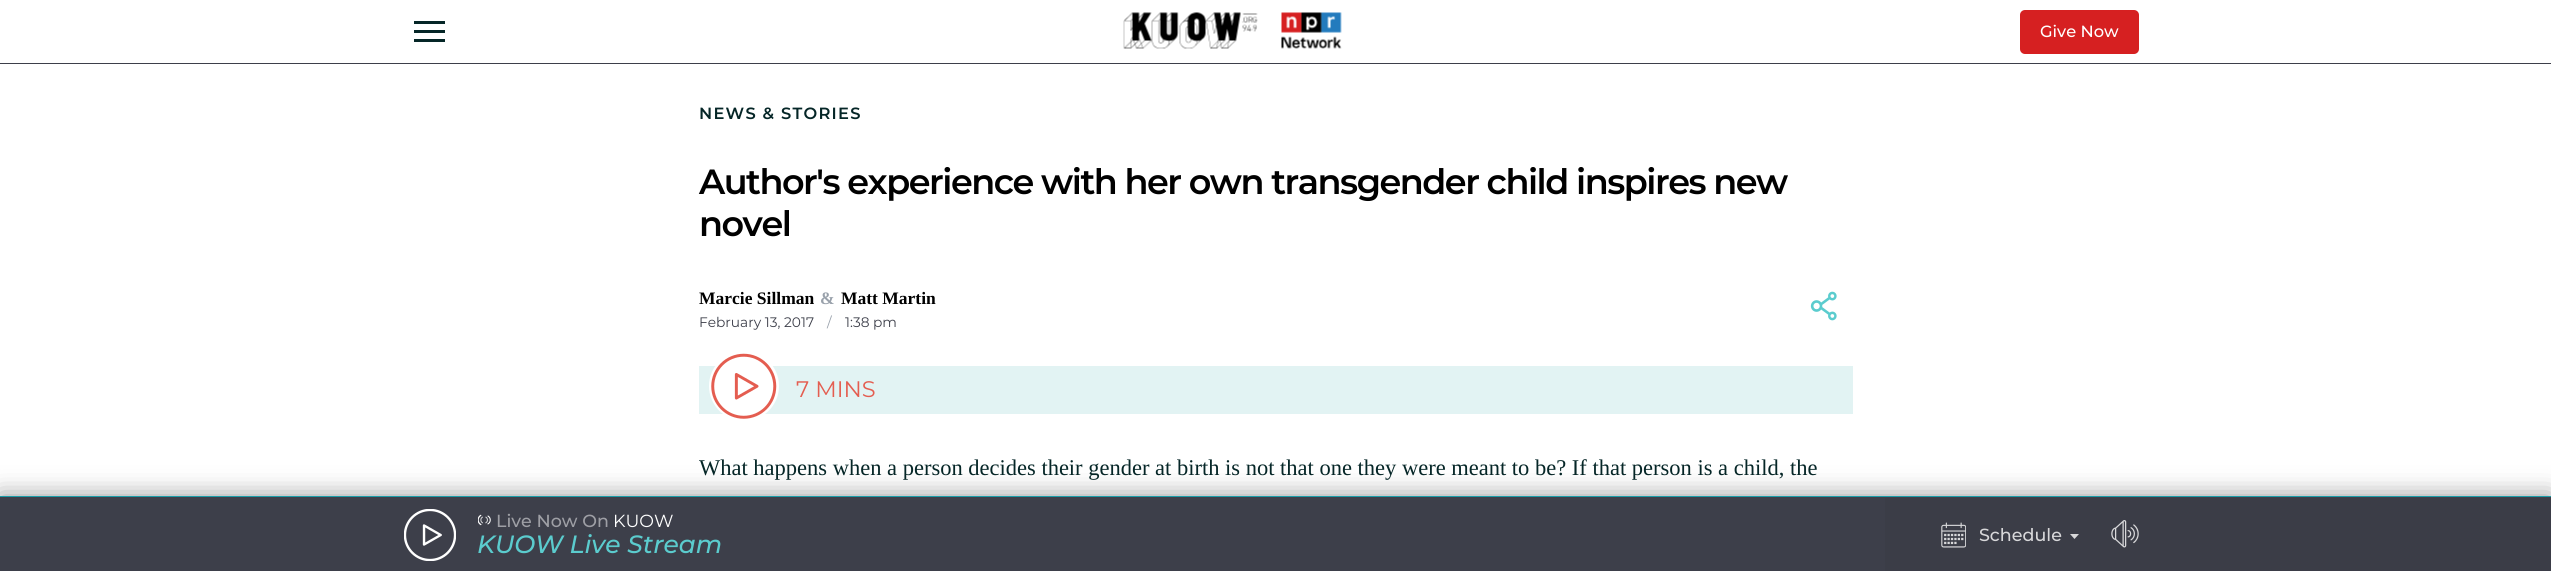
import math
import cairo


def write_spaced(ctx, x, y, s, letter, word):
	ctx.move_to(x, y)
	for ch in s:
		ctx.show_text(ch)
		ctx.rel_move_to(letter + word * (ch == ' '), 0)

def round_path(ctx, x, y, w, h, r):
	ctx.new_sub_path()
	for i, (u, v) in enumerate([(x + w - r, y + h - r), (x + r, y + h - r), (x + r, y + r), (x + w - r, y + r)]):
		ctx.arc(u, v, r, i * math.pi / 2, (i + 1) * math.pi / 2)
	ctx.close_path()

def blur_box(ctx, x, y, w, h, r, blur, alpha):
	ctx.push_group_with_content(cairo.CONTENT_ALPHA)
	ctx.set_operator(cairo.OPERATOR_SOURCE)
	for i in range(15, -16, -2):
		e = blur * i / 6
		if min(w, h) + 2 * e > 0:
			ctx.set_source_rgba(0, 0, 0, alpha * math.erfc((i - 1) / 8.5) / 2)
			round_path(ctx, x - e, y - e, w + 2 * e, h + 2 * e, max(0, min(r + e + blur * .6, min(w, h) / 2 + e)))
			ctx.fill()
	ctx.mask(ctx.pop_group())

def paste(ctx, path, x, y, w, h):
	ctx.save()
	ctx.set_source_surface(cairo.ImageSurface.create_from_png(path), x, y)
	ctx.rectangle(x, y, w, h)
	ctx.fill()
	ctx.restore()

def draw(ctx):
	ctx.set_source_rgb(1, 1, 1)
	ctx.paint()
	ctx.set_source_rgb(0.239, 0.247, 0.29)
	ctx.rectangle(0, 63, 2551, 1)
	ctx.fill()
	ctx.set_source_rgb(0.02, 0.149, 0.153)
	ctx.rectangle(414, 21, 31, 3)
	ctx.rectangle(414, 30, 31, 3)
	ctx.rectangle(414, 39, 31, 3)
	ctx.fill()
	paste(ctx, 'media/1.png', 1123, 12, 219, 37)
	ctx.set_source_rgb(0.839, 0.125, 0.129)
	round_path(ctx, 2020, 10, 119, 44, 5)
	ctx.fill()
	ctx.select_font_face('Montserrat Medium')
	ctx.set_font_size(16.25)
	ctx.set_source_rgb(1, 1, 1)
	ctx.move_to(2040, 37)
	ctx.show_text('Give Now')
	ctx.select_font_face('Montserrat SemiBold')
	ctx.set_source_rgb(0.02, 0.149, 0.153)
	write_spaced(ctx, 699, 119, 'NEWS & STORIES', 1.25, 0)
	ctx.set_font_size(35)
	ctx.set_source_rgb(0, 0, 0)
	write_spaced(ctx, 699, 194, 'Author\'s experience with her own transgender child inspires new', -1.47, 0)
	write_spaced(ctx, 699, 236, 'novel', -1.47, 0)
	ctx.select_font_face('Liberation Serif', cairo.FONT_SLANT_NORMAL, cairo.FONT_WEIGHT_BOLD)
	ctx.set_font_size(17.5)
	ctx.move_to(699, 304)
	ctx.show_text('Marcie Sillman')
	ctx.set_source_rgb(0.6, 0.631, 0.671)
	ctx.move_to(820, 304)
	ctx.show_text('&')
	ctx.set_source_rgb(0, 0, 0)
	ctx.move_to(841, 304)
	ctx.show_text('Matt Martin')
	ctx.select_font_face('Montserrat')
	ctx.set_font_size(13.75)
	ctx.set_source_rgb(0.239, 0.247, 0.29)
	ctx.move_to(699, 327)
	ctx.show_text('February 13, 2017')
	ctx.set_source_rgb(0.6, 0.631, 0.671)
	ctx.move_to(827, 327)
	ctx.show_text('/')
	ctx.set_source_rgb(0.239, 0.247, 0.29)
	ctx.move_to(845, 327)
	ctx.show_text('1:38 pm')
	paste(ctx, 'media/2.png', 1810, 291, 27, 30)
	ctx.set_source_rgb(0.886, 0.953, 0.953)
	ctx.rectangle(699, 366, 1154, 48)
	ctx.fill()
	ctx.set_source_rgb(1, 1, 1)
	ctx.arc(744, 386, 35, 0, 2 * math.pi)
	ctx.fill()
	paste(ctx, 'media/3.png', 711, 353, 66, 66)
	ctx.set_font_size(22.5)
	ctx.set_source_rgb(0.894, 0.365, 0.314)
	ctx.move_to(796, 397)
	ctx.show_text('7 MINS')
	ctx.select_font_face('Liberation Serif')
	ctx.set_source_rgb(0.02, 0.149, 0.153)
	ctx.move_to(699, 475)
	ctx.show_text('What happens when a person decides their gender at birth is not that one they were meant to be? If that person is a child, the')
	ctx.set_source_rgb(0, 0, 0)
	blur_box(ctx, 0, 496, 2551, 75, 0, 12.5, 0.42)
	ctx.set_source_rgb(0.239, 0.247, 0.29)
	ctx.rectangle(0, 497, 2551, 74)
	ctx.fill()
	ctx.set_source_rgb(0.102, 0.612, 0.659)
	ctx.rectangle(0, 496, 2551, 1)
	ctx.fill()
	paste(ctx, 'media/4.png', 404, 509, 52, 52)
	paste(ctx, 'media/5.png', 478, 514, 13, 12)
	ctx.select_font_face('Montserrat Medium')
	ctx.set_font_size(17.5)
	ctx.set_source_rgb(0.62, 0.624, 0.647)
	ctx.move_to(496, 527)
	ctx.show_text('Live Now On')
	ctx.select_font_face('Montserrat')
	ctx.set_source_rgb(1, 1, 1)
	ctx.move_to(613, 527)
	ctx.show_text('KUOW')
	ctx.select_font_face('Montserrat Medium', cairo.FONT_SLANT_ITALIC)
	ctx.set_font_size(25)
	ctx.set_source_rgb(0.357, 0.8, 0.808)
	ctx.move_to(477, 553)
	ctx.show_text('KUOW Live Stream')
	ctx.set_source_rgb(0.231, 0.239, 0.278)
	ctx.rectangle(1885, 498, 666, 73)
	ctx.fill()
	paste(ctx, 'media/6.png', 1941, 522, 25, 26)
	ctx.select_font_face('Montserrat Medium')
	ctx.set_font_size(17.5)
	ctx.set_source_rgb(0.847, 0.847, 0.855)
	ctx.move_to(1979, 541)
	ctx.show_text('Schedule')
	ctx.set_fill_rule(cairo.FILL_RULE_EVEN_ODD)
	ctx.new_path()
	ctx.move_to(2074.5, 539)
	ctx.line_to(2070, 534)
	ctx.line_to(2079, 534)
	ctx.close_path()
	ctx.fill()
	paste(ctx, 'media/7.png', 2111, 520, 28, 28)


surface = cairo.ImageSurface(cairo.FORMAT_RGB24, 2551, 571)
ctx = cairo.Context(surface)
options = cairo.FontOptions()
options.set_hint_metrics(cairo.HINT_METRICS_OFF)
options.set_hint_style(cairo.HINT_STYLE_NONE)
ctx.set_font_options(options)
ctx.set_miter_limit(4)
draw(ctx)
surface.write_to_png('image.png')
